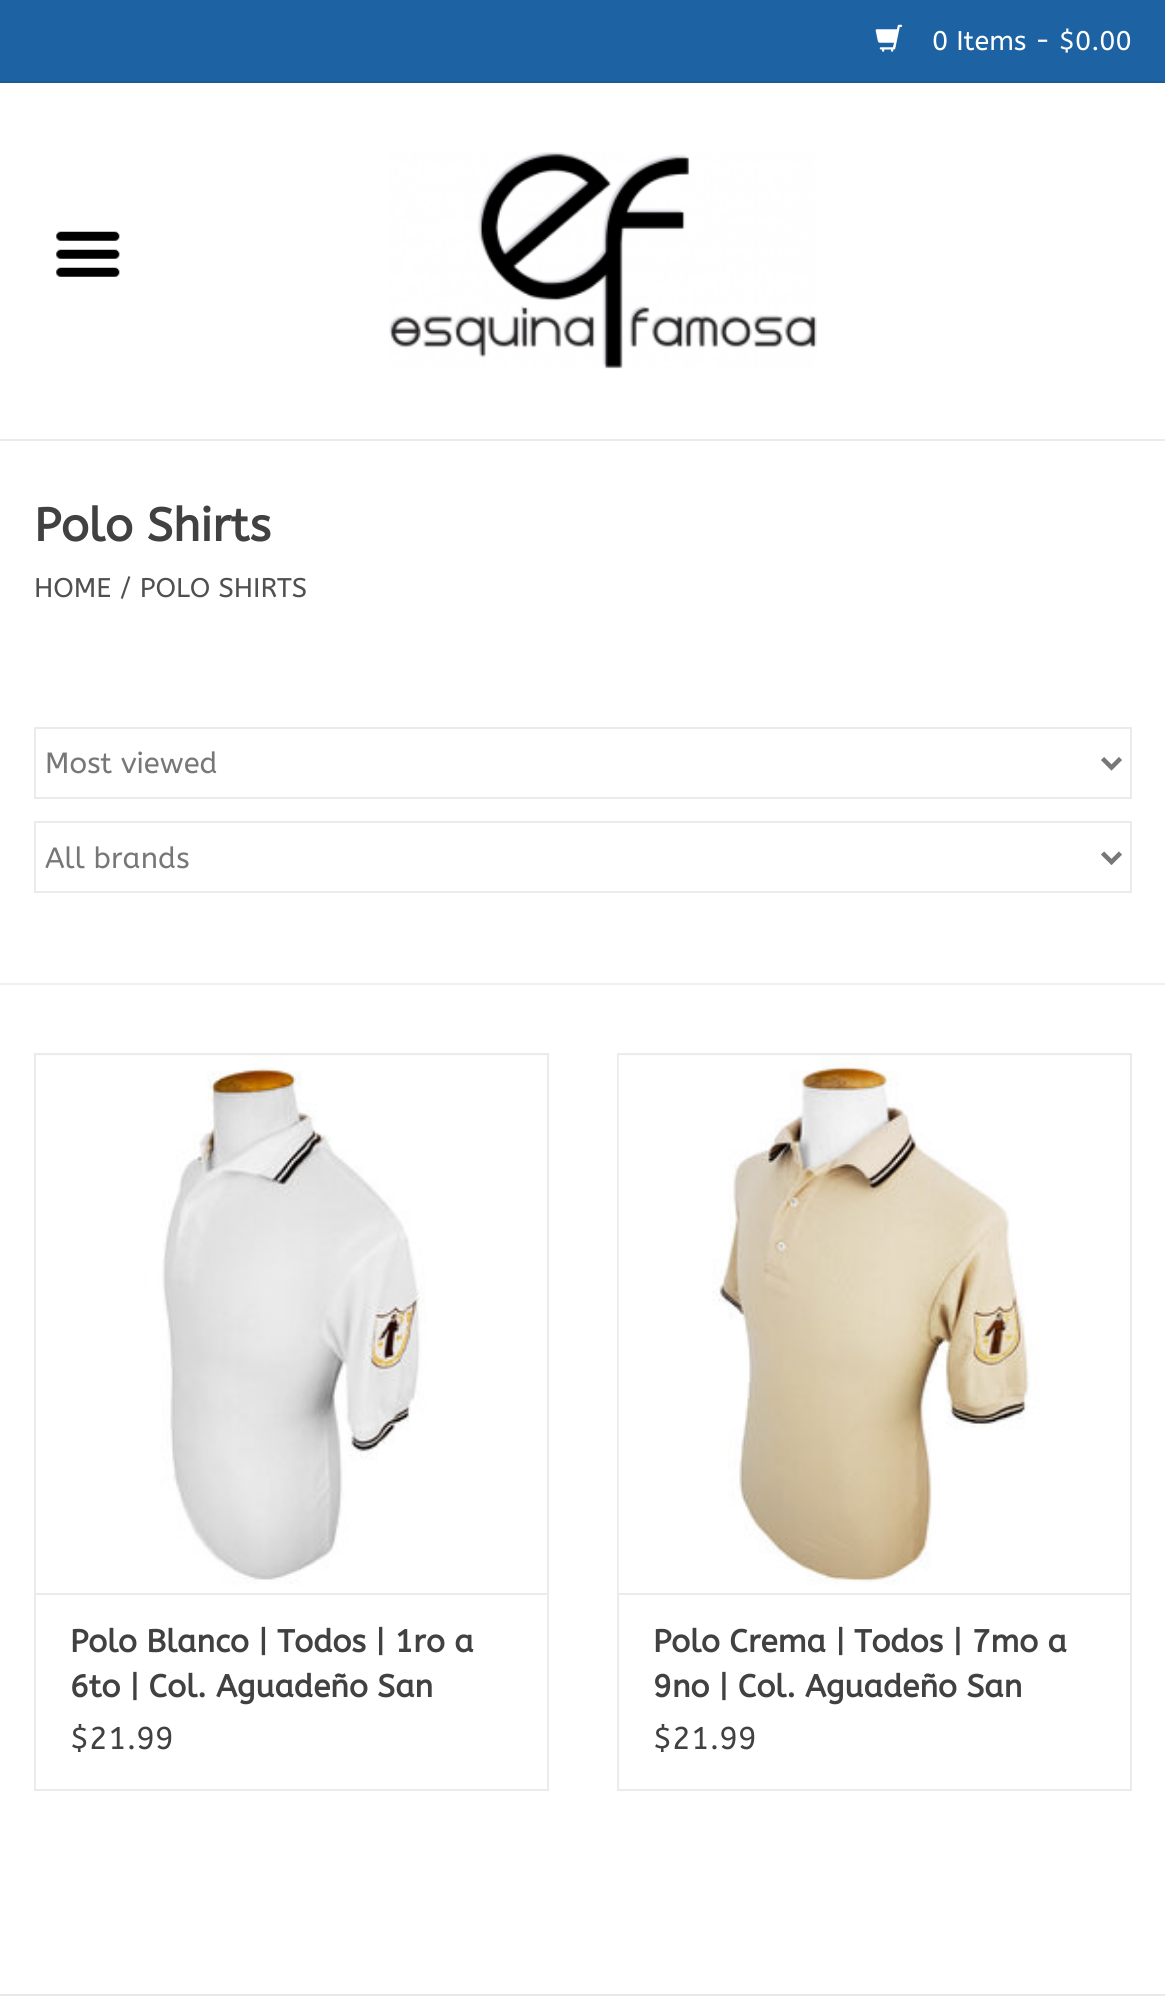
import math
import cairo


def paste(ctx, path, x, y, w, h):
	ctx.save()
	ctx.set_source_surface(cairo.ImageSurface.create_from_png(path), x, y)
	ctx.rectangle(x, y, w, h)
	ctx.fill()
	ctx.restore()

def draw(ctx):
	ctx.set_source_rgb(1, 1, 1)
	ctx.paint()
	ctx.set_source_rgb(0.114, 0.384, 0.635)
	ctx.rectangle(0, 0, 1165, 81)
	ctx.fill()
	ctx.set_source_rgb(0.102, 0.357, 0.588)
	ctx.rectangle(0, 81, 1165, 2)
	ctx.fill()
	paste(ctx, 'media/1.png', 875, 24, 28, 28)
	ctx.select_font_face('ABeeZee')
	ctx.set_font_size(27)
	ctx.set_source_rgb(1, 1, 1)
	ctx.move_to(932, 50)
	ctx.show_text('0 Items - $0.00')
	ctx.set_source_rgb(0.918, 0.918, 0.918)
	ctx.rectangle(0, 439, 1165, 2)
	ctx.fill()
	paste(ctx, 'media/2.png', 389, 152, 428, 217)
	paste(ctx, 'media/3.png', 56, 231, 64, 46)
	ctx.select_font_face('ABeeZee', cairo.FONT_SLANT_NORMAL, cairo.FONT_WEIGHT_BOLD)
	ctx.set_font_size(46.5)
	ctx.set_source_rgb(0.255, 0.255, 0.255)
	ctx.move_to(34, 541)
	ctx.show_text('Polo Shirts')
	ctx.select_font_face('ABeeZee')
	ctx.set_font_size(27)
	ctx.set_source_rgb(0.314, 0.314, 0.314)
	ctx.move_to(34, 597)
	ctx.show_text('HOME / POLO SHIRTS')
	ctx.set_source_rgb(0.941, 0.941, 0.941)
	ctx.rectangle(0, 983, 1165, 2)
	ctx.fill()
	ctx.rectangle(35, 728, 1096, 70)
	ctx.set_source_rgb(0.918, 0.918, 0.918)
	ctx.stroke()
	ctx.new_path()
	ctx.move_to(1102.5, 758.5)
	ctx.line_to(1111.5, 767.5)
	ctx.line_to(1120.5, 758.5)
	ctx.set_source_rgb(0.467, 0.467, 0.467)
	ctx.set_line_width(4.5)
	ctx.stroke()
	ctx.set_font_size(29.25)
	ctx.move_to(45, 773)
	ctx.show_text('Most viewed')
	ctx.rectangle(35, 822, 1096, 70)
	ctx.set_source_rgb(0.918, 0.918, 0.918)
	ctx.set_line_width(2)
	ctx.stroke()
	ctx.new_path()
	ctx.move_to(1102.5, 853)
	ctx.line_to(1111.5, 862)
	ctx.line_to(1120.5, 853)
	ctx.set_source_rgb(0.467, 0.467, 0.467)
	ctx.set_line_width(4.5)
	ctx.stroke()
	ctx.move_to(45, 868)
	ctx.show_text('All brands')
	ctx.set_source_rgb(0.969, 0.969, 0.969)
	ctx.rectangle(36, 1055, 511, 538)
	ctx.fill()
	ctx.set_source_rgb(0.918, 0.918, 0.918)
	ctx.rectangle(34, 1053, 515, 2)
	ctx.rectangle(547, 1053, 2, 540)
	ctx.rectangle(34, 1053, 2, 540)
	ctx.fill()
	paste(ctx, 'media/4.png', 36, 1055, 511, 538)
	ctx.rectangle(35, 1594, 513, 196)
	ctx.set_line_width(2)
	ctx.stroke()
	ctx.select_font_face('ABeeZee', cairo.FONT_SLANT_NORMAL, cairo.FONT_WEIGHT_BOLD)
	ctx.set_font_size(31.5)
	ctx.set_source_rgb(0.255, 0.255, 0.255)
	ctx.move_to(70, 1652)
	ctx.show_text('Polo Blanco | Todos | 1ro a')
	ctx.move_to(70, 1697)
	ctx.show_text('6to | Col. Aguadeño San')
	ctx.select_font_face('ABeeZee')
	ctx.move_to(70, 1749)
	ctx.show_text('$21.99')
	ctx.set_source_rgb(0.969, 0.969, 0.969)
	ctx.rectangle(619, 1055, 511, 538)
	ctx.fill()
	ctx.set_source_rgb(0.918, 0.918, 0.918)
	ctx.rectangle(617, 1053, 515, 2)
	ctx.rectangle(1130, 1053, 2, 540)
	ctx.rectangle(617, 1053, 2, 540)
	ctx.fill()
	paste(ctx, 'media/5.png', 618, 1055, 512, 538)
	ctx.rectangle(618, 1594, 513, 196)
	ctx.stroke()
	ctx.select_font_face('ABeeZee', cairo.FONT_SLANT_NORMAL, cairo.FONT_WEIGHT_BOLD)
	ctx.set_source_rgb(0.255, 0.255, 0.255)
	ctx.move_to(653, 1652)
	ctx.show_text('Polo Crema | Todos | 7mo a')
	ctx.move_to(653, 1697)
	ctx.show_text('9no | Col. Aguadeño San')
	ctx.select_font_face('ABeeZee')
	ctx.move_to(653, 1749)
	ctx.show_text('$21.99')
	ctx.set_source_rgb(0.914, 0.914, 0.914)
	ctx.rectangle(0, 1994, 1165, 2)
	ctx.fill()


surface = cairo.ImageSurface(cairo.FORMAT_RGB24, 1165, 2016)
ctx = cairo.Context(surface)
options = cairo.FontOptions()
options.set_hint_metrics(cairo.HINT_METRICS_OFF)
options.set_hint_style(cairo.HINT_STYLE_NONE)
ctx.set_font_options(options)
ctx.set_miter_limit(4)
draw(ctx)
surface.write_to_png('image.png')
